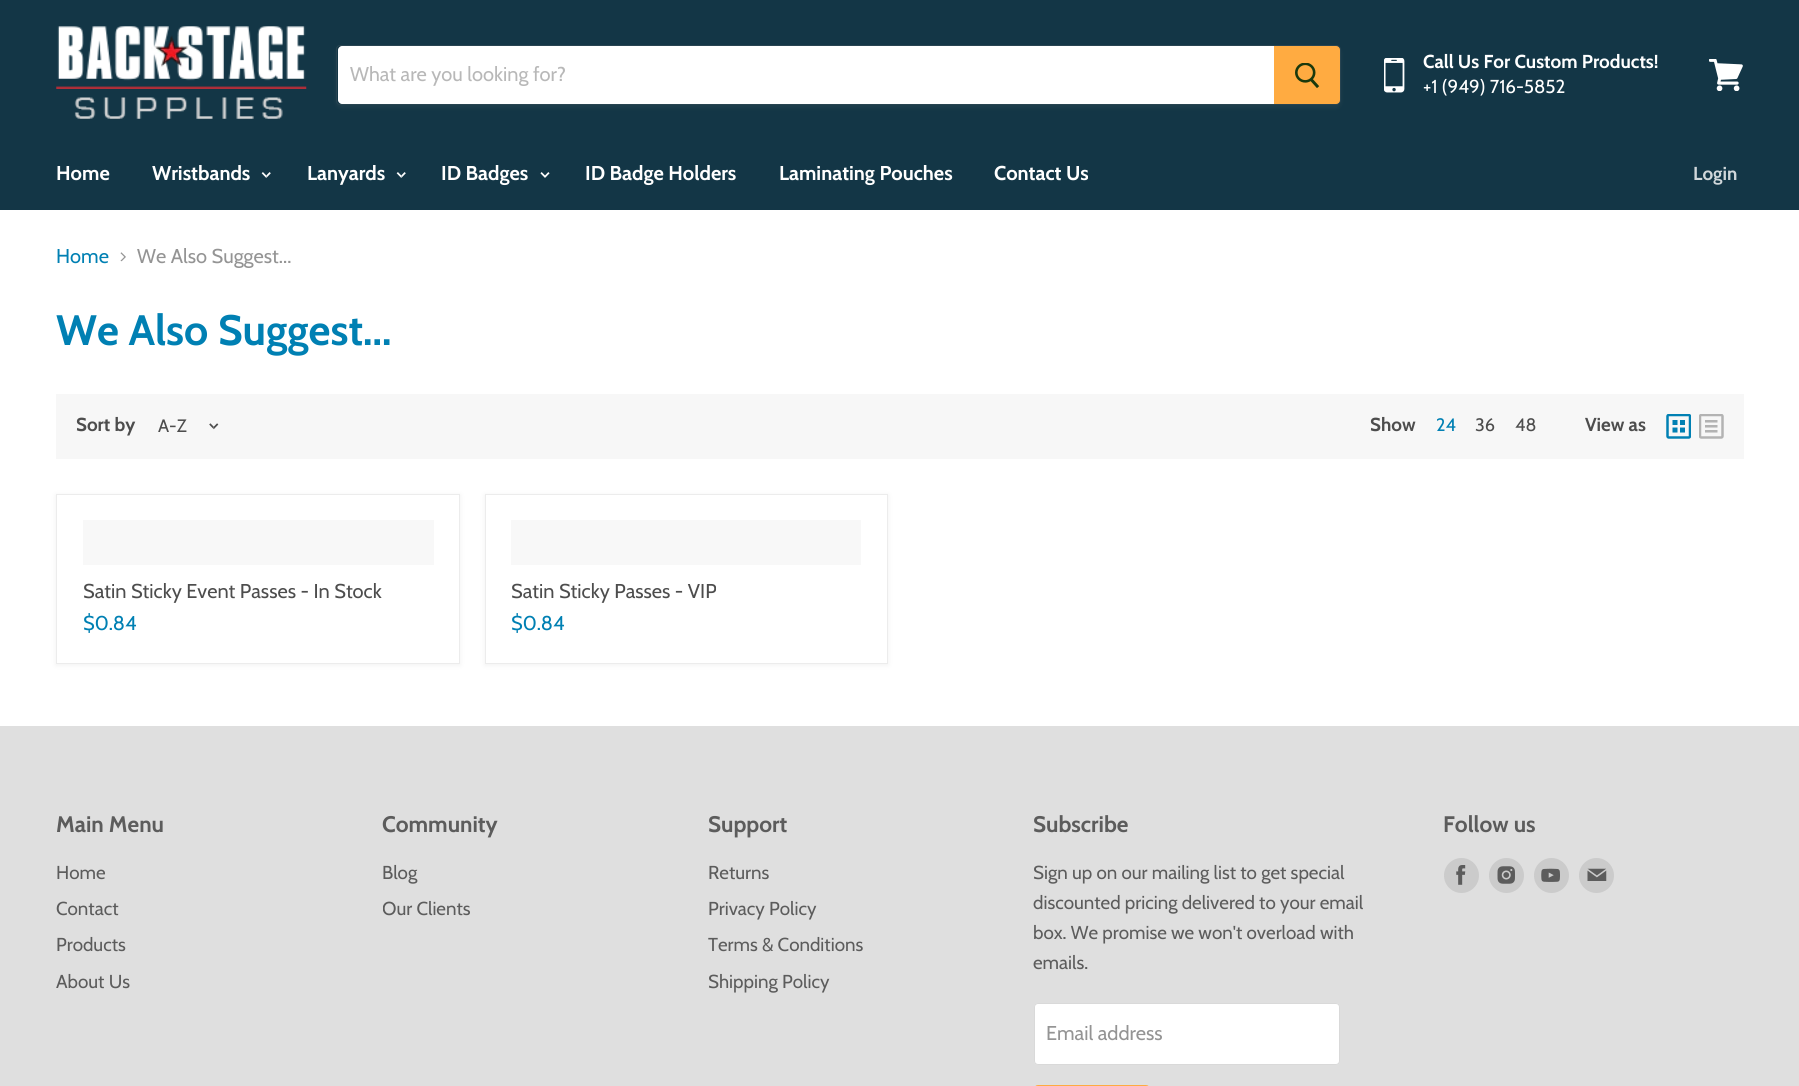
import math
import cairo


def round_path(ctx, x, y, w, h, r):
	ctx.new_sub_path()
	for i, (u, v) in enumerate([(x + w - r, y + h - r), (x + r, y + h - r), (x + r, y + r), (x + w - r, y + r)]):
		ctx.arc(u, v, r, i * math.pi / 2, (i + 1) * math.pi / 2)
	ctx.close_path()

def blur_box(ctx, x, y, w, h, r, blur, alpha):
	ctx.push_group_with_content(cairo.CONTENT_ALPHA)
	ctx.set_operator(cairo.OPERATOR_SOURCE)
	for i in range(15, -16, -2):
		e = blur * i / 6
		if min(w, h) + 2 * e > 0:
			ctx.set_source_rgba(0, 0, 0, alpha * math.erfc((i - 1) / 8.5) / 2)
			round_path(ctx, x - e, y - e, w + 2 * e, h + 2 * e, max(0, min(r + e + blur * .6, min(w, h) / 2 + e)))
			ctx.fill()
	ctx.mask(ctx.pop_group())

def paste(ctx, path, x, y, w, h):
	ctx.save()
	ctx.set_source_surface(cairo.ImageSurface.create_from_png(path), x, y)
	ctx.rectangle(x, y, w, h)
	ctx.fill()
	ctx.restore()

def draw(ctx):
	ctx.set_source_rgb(1, 1, 1)
	ctx.paint()
	ctx.set_source_rgb(0.075, 0.212, 0.275)
	ctx.rectangle(0, 0, 1799, 210)
	ctx.fill()
	paste(ctx, 'media/1.png', 56, 26, 251, 93)
	ctx.save()
	ctx.set_fill_rule(cairo.FILL_RULE_EVEN_ODD)
	ctx.new_path()
	ctx.move_to(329, 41)
	ctx.line_to(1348, 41)
	ctx.line_to(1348, 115)
	ctx.line_to(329, 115)
	ctx.close_path()
	ctx.move_to(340, 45)
	ctx.line_to(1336, 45)
	ctx.curve_to(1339, 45, 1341, 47, 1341, 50)
	ctx.line_to(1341, 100)
	ctx.curve_to(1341, 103, 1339, 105, 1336, 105)
	ctx.line_to(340, 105)
	ctx.curve_to(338, 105, 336, 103, 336, 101)
	ctx.line_to(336, 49)
	ctx.curve_to(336, 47, 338, 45, 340, 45)
	ctx.close_path()
	ctx.clip()
	ctx.set_source_rgb(0.498, 0.498, 0.498)
	blur_box(ctx, 336, 48, 1005, 60, 5, 2, 0.11)
	ctx.restore()
	ctx.new_path()
	ctx.move_to(340, 45.5)
	ctx.line_to(1336, 45.5)
	ctx.curve_to(1338.5, 45.5, 1340.5, 47.5, 1340.5, 50)
	ctx.line_to(1340.5, 100)
	ctx.curve_to(1340.5, 102.5, 1338.5, 104.5, 1336, 104.5)
	ctx.line_to(340, 104.5)
	ctx.curve_to(338, 104.5, 336.5, 103, 336.5, 101)
	ctx.line_to(336.5, 49)
	ctx.curve_to(336.5, 47, 338, 45.5, 340, 45.5)
	ctx.close_path()
	ctx.set_source_rgba(0.498, 0.498, 0.498, 0.2)
	ctx.set_line_width(1)
	ctx.stroke()
	ctx.set_source_rgb(1, 1, 1)
	ctx.new_path()
	ctx.move_to(342, 46)
	ctx.line_to(1274, 46)
	ctx.line_to(1274, 104)
	ctx.line_to(342, 104)
	ctx.curve_to(340, 104, 338, 102, 338, 100)
	ctx.line_to(338, 50)
	ctx.curve_to(338, 48, 340, 46, 342, 46)
	ctx.close_path()
	ctx.fill()
	ctx.select_font_face('Cabin')
	ctx.set_font_size(20)
	ctx.set_source_rgb(0.722, 0.722, 0.722)
	ctx.move_to(350, 81)
	ctx.show_text('What are you looking for?')
	ctx.set_source_rgb(1, 0.671, 0.255)
	ctx.new_path()
	ctx.move_to(1274.5, 46.5)
	ctx.line_to(1336, 46.5)
	ctx.curve_to(1338, 46.5, 1339.5, 48, 1339.5, 50)
	ctx.line_to(1339.5, 100)
	ctx.curve_to(1339.5, 102, 1338, 103.5, 1336, 103.5)
	ctx.line_to(1274.5, 103.5)
	ctx.close_path()
	ctx.fill_preserve()
	ctx.stroke()
	paste(ctx, 'media/2.png', 1295, 63, 25, 25)
	paste(ctx, 'media/3.png', 1384, 58, 21, 35)
	ctx.select_font_face('Cabin', cairo.FONT_SLANT_NORMAL, cairo.FONT_WEIGHT_BOLD)
	ctx.set_font_size(18.75)
	ctx.set_source_rgb(1, 1, 1)
	ctx.move_to(1423, 68)
	ctx.show_text('Call Us For Custom Products!')
	ctx.select_font_face('Cabin')
	ctx.move_to(1423, 93)
	ctx.show_text('+1 (949) 716-5852')
	paste(ctx, 'media/4.png', 1709, 59, 34, 32)
	ctx.select_font_face('Cabin', cairo.FONT_SLANT_NORMAL, cairo.FONT_WEIGHT_BOLD)
	ctx.set_font_size(20)
	ctx.move_to(56, 180)
	ctx.show_text('Home')
	ctx.move_to(152, 180)
	ctx.show_text('Wristbands')
	paste(ctx, 'media/5.png', 261, 172, 10, 6)
	ctx.move_to(307, 180)
	ctx.show_text('Lanyards')
	paste(ctx, 'media/5.png', 396, 172, 10, 6)
	ctx.move_to(441, 180)
	ctx.show_text('ID Badges')
	paste(ctx, 'media/6.png', 540, 172, 10, 6)
	for x, y, s in [
		(585, 180, 'ID Badge Holders'),
		(779, 180, 'Laminating Pouches'),
		(994, 180, 'Contact Us'),
	]:
		ctx.move_to(x, y)
		ctx.show_text(s)
	ctx.set_font_size(18.75)
	ctx.set_source_rgb(0.816, 0.843, 0.855)
	ctx.move_to(1693, 180)
	ctx.show_text('Login')
	ctx.select_font_face('Cabin')
	ctx.set_font_size(20)
	ctx.set_source_rgb(0, 0.502, 0.702)
	ctx.move_to(56, 263)
	ctx.show_text('Home')
	paste(ctx, 'media/7.png', 120, 252, 6, 10)
	ctx.set_source_rgb(0.58, 0.58, 0.58)
	ctx.move_to(137, 263)
	ctx.show_text('We Also Suggest...')
	ctx.select_font_face('Cabin', cairo.FONT_SLANT_NORMAL, cairo.FONT_WEIGHT_BOLD)
	ctx.set_font_size(42.5)
	ctx.set_source_rgb(0, 0.502, 0.702)
	ctx.move_to(56, 345)
	ctx.show_text('We Also Suggest...')
	ctx.set_source_rgb(0.965, 0.965, 0.965)
	ctx.rectangle(56, 394, 1688, 65)
	ctx.fill()
	ctx.set_font_size(18.75)
	ctx.set_source_rgb(0.302, 0.302, 0.302)
	ctx.move_to(76, 431)
	ctx.show_text('Sort by')
	ctx.select_font_face('Cabin')
	ctx.set_font_size(18)
	ctx.move_to(158, 432)
	ctx.show_text('A-Z')
	paste(ctx, 'media/8.png', 209, 423, 10, 7)
	ctx.select_font_face('Cabin', cairo.FONT_SLANT_NORMAL, cairo.FONT_WEIGHT_BOLD)
	ctx.set_font_size(18.75)
	ctx.move_to(1370, 431)
	ctx.show_text('Show')
	ctx.select_font_face('Cabin')
	ctx.set_font_size(18)
	ctx.set_source_rgb(0, 0.502, 0.702)
	ctx.move_to(1436, 431)
	ctx.show_text('24')
	ctx.set_source_rgb(0.302, 0.302, 0.302)
	ctx.move_to(1475, 431)
	ctx.show_text('36')
	ctx.move_to(1515, 431)
	ctx.show_text('48')
	ctx.select_font_face('Cabin', cairo.FONT_SLANT_NORMAL, cairo.FONT_WEIGHT_BOLD)
	ctx.set_font_size(18.75)
	ctx.move_to(1585, 431)
	ctx.show_text('View as')
	paste(ctx, 'media/9.png', 1666, 414, 25, 25)
	paste(ctx, 'media/10.png', 1699, 414, 25, 25)
	ctx.set_source_rgb(0.498, 0.498, 0.498)
	blur_box(ctx, 56, 495, 404, 170, 0, 2.5, 0.11)
	ctx.set_source_rgb(1, 1, 1)
	ctx.rectangle(56.5, 494.5, 403, 169)
	ctx.fill_preserve()
	ctx.set_source_rgb(0.922, 0.922, 0.922)
	ctx.stroke()
	ctx.set_source_rgb(0.969, 0.969, 0.969)
	ctx.rectangle(83, 520, 351, 45)
	ctx.fill()
	ctx.select_font_face('Cabin')
	ctx.set_font_size(20)
	ctx.set_source_rgb(0.302, 0.302, 0.302)
	ctx.move_to(83, 598)
	ctx.show_text('Satin Sticky Event Passes - In Stock')
	ctx.set_source_rgb(0, 0.502, 0.702)
	ctx.move_to(83, 630)
	ctx.show_text('$0.84')
	ctx.set_source_rgb(0.498, 0.498, 0.498)
	blur_box(ctx, 485, 495, 403, 170, 0, 2.5, 0.11)
	ctx.set_source_rgb(1, 1, 1)
	ctx.rectangle(485.5, 494.5, 402, 169)
	ctx.fill_preserve()
	ctx.set_source_rgb(0.922, 0.922, 0.922)
	ctx.stroke()
	ctx.set_source_rgb(0.969, 0.969, 0.969)
	ctx.rectangle(511, 520, 350, 45)
	ctx.fill()
	ctx.set_source_rgb(0.302, 0.302, 0.302)
	ctx.move_to(511, 598)
	ctx.show_text('Satin Sticky Passes - VIP')
	ctx.set_source_rgb(0, 0.502, 0.702)
	ctx.move_to(511, 630)
	ctx.show_text('$0.84')
	ctx.set_source_rgb(0.875, 0.875, 0.875)
	ctx.rectangle(0, 726, 1799, 360)
	ctx.fill()
	ctx.select_font_face('Cabin', cairo.FONT_SLANT_NORMAL, cairo.FONT_WEIGHT_BOLD)
	ctx.set_font_size(22.5)
	ctx.set_source_rgb(0.361, 0.361, 0.361)
	ctx.move_to(56, 832)
	ctx.show_text('Main Menu')
	ctx.select_font_face('Cabin')
	ctx.set_font_size(18.75)
	for x, y, s in [
		(56, 879, 'Home'),
		(56, 915, 'Contact'),
		(56, 951, 'Products'),
		(56, 988, 'About Us'),
	]:
		ctx.move_to(x, y)
		ctx.show_text(s)
	ctx.select_font_face('Cabin', cairo.FONT_SLANT_NORMAL, cairo.FONT_WEIGHT_BOLD)
	ctx.set_font_size(22.5)
	ctx.move_to(382, 832)
	ctx.show_text('Community')
	ctx.select_font_face('Cabin')
	ctx.set_font_size(18.75)
	ctx.move_to(382, 879)
	ctx.show_text('Blog')
	ctx.save()
	ctx.rectangle(383, 858, 275, 66)
	ctx.clip()
	ctx.move_to(382, 915)
	ctx.show_text('Our Clients')
	ctx.restore()
	ctx.select_font_face('Cabin', cairo.FONT_SLANT_NORMAL, cairo.FONT_WEIGHT_BOLD)
	ctx.set_font_size(22.5)
	ctx.move_to(708, 832)
	ctx.show_text('Support')
	ctx.select_font_face('Cabin')
	ctx.set_font_size(18.75)
	for x, y, s in [
		(708, 879, 'Returns'),
		(708, 915, 'Privacy Policy'),
		(708, 951, 'Terms & Conditions'),
		(708, 988, 'Shipping Policy'),
	]:
		ctx.move_to(x, y)
		ctx.show_text(s)
	ctx.select_font_face('Cabin', cairo.FONT_SLANT_NORMAL, cairo.FONT_WEIGHT_BOLD)
	ctx.set_font_size(22.5)
	ctx.move_to(1033, 832)
	ctx.show_text('Subscribe')
	ctx.select_font_face('Cabin')
	ctx.set_font_size(18.75)
	for x, y, s in [
		(1033, 879, 'Sign up on our mailing list to get special'),
		(1033, 909, 'discounted pricing delivered to your email'),
		(1033, 939, 'box. We promise we won\'t overload with'),
		(1033, 969, 'emails.'),
	]:
		ctx.move_to(x, y)
		ctx.show_text(s)
	ctx.set_source_rgb(1, 1, 1)
	round_path(ctx, 1034, 1003, 306, 62, 4)
	ctx.fill()
	round_path(ctx, 1034.5, 1003.5, 305, 61, 3.5)
	ctx.set_source_rgba(0.498, 0.498, 0.498, 0.3)
	ctx.stroke()
	ctx.set_font_size(20)
	ctx.set_source_rgb(0.58, 0.58, 0.58)
	ctx.move_to(1046, 1040)
	ctx.show_text('Email address')
	round_path(ctx, 1034.5, 1085.5, 115, 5, 3.5)
	ctx.set_source_rgb(1, 0.671, 0.255)
	ctx.stroke()
	ctx.select_font_face('Cabin', cairo.FONT_SLANT_NORMAL, cairo.FONT_WEIGHT_BOLD)
	ctx.set_font_size(22.5)
	ctx.set_source_rgb(0.361, 0.361, 0.361)
	ctx.move_to(1443, 832)
	ctx.show_text('Follow us')
	ctx.set_source_rgb(0.796, 0.796, 0.796)
	ctx.new_path()
	ctx.arc(1461.5, 875.5, 17.5, 0, 2 * math.pi)
	ctx.fill()
	paste(ctx, 'media/11.png', 1456, 865, 10, 20)
	ctx.arc(1506.5, 875.5, 17.5, 0, 2 * math.pi)
	ctx.fill()
	paste(ctx, 'media/12.png', 1497, 866, 18, 18)
	ctx.arc(1551.5, 875.5, 17.5, 0, 2 * math.pi)
	ctx.fill()
	paste(ctx, 'media/13.png', 1541, 868, 19, 14)
	ctx.arc(1596.5, 875.5, 17.5, 0, 2 * math.pi)
	ctx.fill()
	paste(ctx, 'media/14.png', 1587, 868, 20, 13)


surface = cairo.ImageSurface(cairo.FORMAT_RGB24, 1799, 1086)
ctx = cairo.Context(surface)
options = cairo.FontOptions()
options.set_hint_metrics(cairo.HINT_METRICS_OFF)
options.set_hint_style(cairo.HINT_STYLE_NONE)
ctx.set_font_options(options)
ctx.set_miter_limit(4)
draw(ctx)
surface.write_to_png('image.png')
